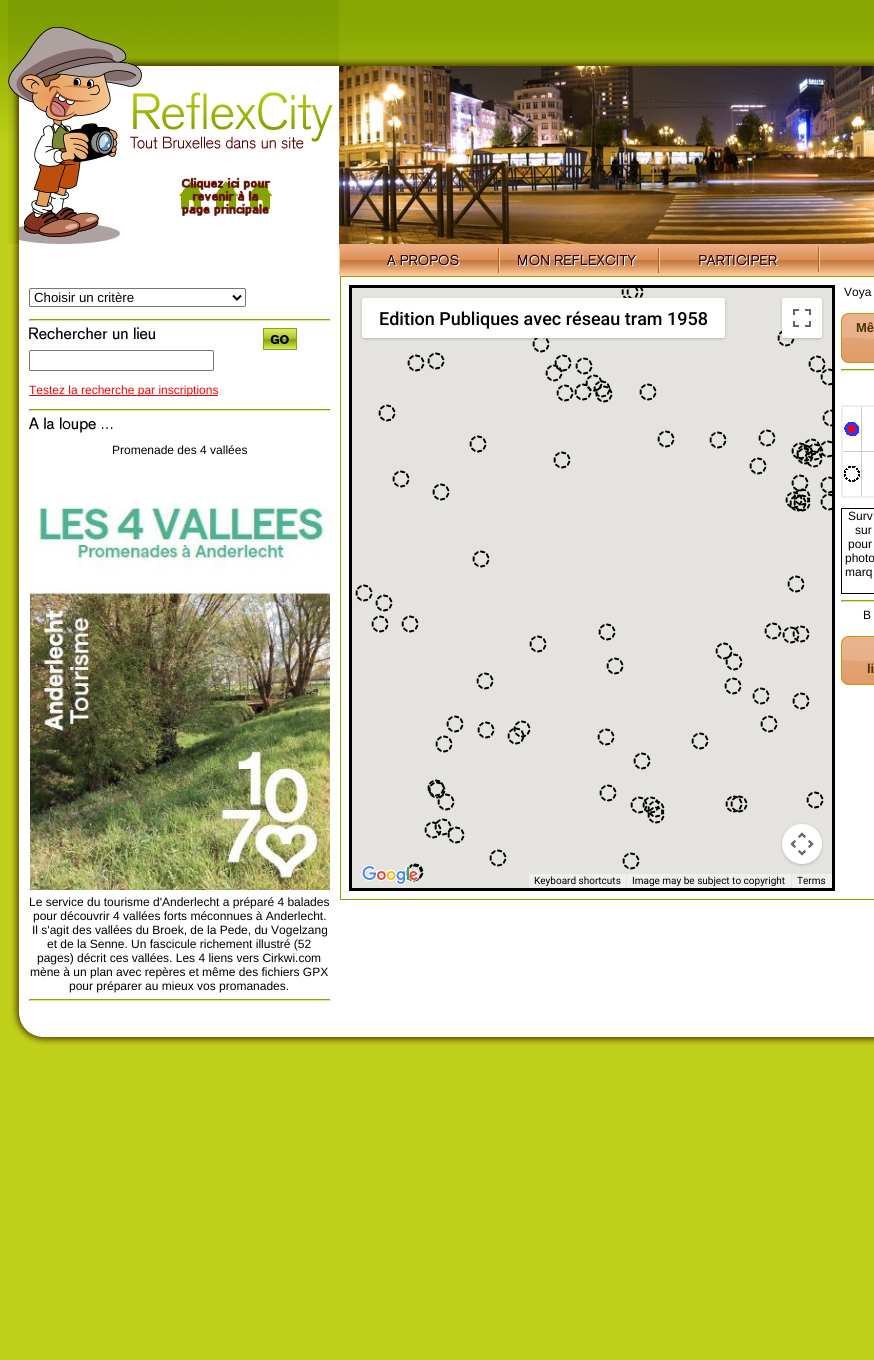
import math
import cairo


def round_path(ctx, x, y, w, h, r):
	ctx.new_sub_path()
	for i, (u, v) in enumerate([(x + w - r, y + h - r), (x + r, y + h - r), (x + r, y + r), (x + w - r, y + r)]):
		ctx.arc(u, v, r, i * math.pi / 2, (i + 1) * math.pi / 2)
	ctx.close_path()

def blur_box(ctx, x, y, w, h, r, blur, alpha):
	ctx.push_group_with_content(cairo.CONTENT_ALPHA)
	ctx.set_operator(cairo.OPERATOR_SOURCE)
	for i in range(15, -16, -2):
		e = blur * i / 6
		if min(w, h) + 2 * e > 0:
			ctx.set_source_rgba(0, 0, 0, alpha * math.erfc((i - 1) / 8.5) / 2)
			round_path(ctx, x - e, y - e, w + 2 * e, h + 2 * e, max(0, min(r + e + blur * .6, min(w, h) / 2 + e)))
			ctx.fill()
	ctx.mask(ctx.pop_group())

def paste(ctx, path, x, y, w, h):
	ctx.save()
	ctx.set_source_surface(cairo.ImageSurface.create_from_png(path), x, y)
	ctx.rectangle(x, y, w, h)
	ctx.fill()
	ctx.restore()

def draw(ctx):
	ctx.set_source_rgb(0.745, 0.816, 0.102)
	ctx.paint()
	paste(ctx, 'media/1.png', 0, 0, 874, 139)
	paste(ctx, 'media/2.png', 8, 0, 331, 244)
	paste(ctx, 'media/3.png', 339, 58, 535, 8)
	paste(ctx, 'media/4.png', 339, 66, 535, 178)
	paste(ctx, 'media/5.png', 11, 244, 328, 32)
	paste(ctx, 'media/6.png', 339, 244, 160, 32)
	paste(ctx, 'media/7.png', 499, 244, 160, 32)
	paste(ctx, 'media/8.png', 659, 244, 160, 32)
	paste(ctx, 'media/9.png', 819, 244, 55, 32)
	paste(ctx, 'media/10.png', 11, 276, 863, 735)
	round_path(ctx, 29.5, 288.5, 216, 18, 1.5)
	ctx.set_source_rgb(0.463, 0.463, 0.463)
	ctx.set_line_width(1)
	ctx.stroke()
	ctx.new_path()
	ctx.move_to(233, 295.5)
	ctx.line_to(237, 299.5)
	ctx.line_to(241, 295.5)
	ctx.set_source_rgb(0, 0, 0)
	ctx.set_line_width(2)
	ctx.stroke()
	ctx.select_font_face('Liberation Sans')
	ctx.set_font_size(13.25)
	ctx.move_to(34, 302)
	ctx.show_text('Choisir un critère')
	ctx.set_source_rgb(0.529, 0.651, 0.008)
	ctx.rectangle(29, 319, 302, 1)
	ctx.fill()
	ctx.set_source_rgb(0.933, 0.933, 0.933)
	ctx.rectangle(330, 319, 1, 2)
	ctx.fill()
	ctx.set_source_rgb(0.851, 0.914, 0.592)
	ctx.rectangle(29, 320, 302, 1)
	ctx.fill()
	ctx.set_source_rgb(0.624, 0.624, 0.624)
	ctx.rectangle(29, 319, 1, 2)
	ctx.fill()
	paste(ctx, 'media/11.png', 29, 327, 126, 13)
	paste(ctx, 'media/12.png', 263, 328, 34, 22)
	round_path(ctx, 29.5, 350.5, 184, 20, 1.5)
	ctx.set_source_rgb(0.463, 0.463, 0.463)
	ctx.set_line_width(1)
	ctx.stroke()
	ctx.set_source_rgb(1, 0, 0)
	ctx.rectangle(29, 395, 189, 1)
	ctx.fill()
	ctx.set_font_size(12)
	ctx.move_to(29, 394)
	ctx.show_text('Testez la recherche par inscriptions')
	ctx.set_source_rgb(0.529, 0.651, 0.008)
	ctx.rectangle(29, 409, 302, 1)
	ctx.fill()
	ctx.set_source_rgb(0.933, 0.933, 0.933)
	ctx.rectangle(330, 409, 1, 2)
	ctx.fill()
	ctx.set_source_rgb(0.851, 0.914, 0.592)
	ctx.rectangle(29, 410, 302, 1)
	ctx.fill()
	ctx.set_source_rgb(0.624, 0.624, 0.624)
	ctx.rectangle(29, 409, 1, 2)
	ctx.fill()
	paste(ctx, 'media/13.png', 29, 417, 84, 16)
	ctx.set_source_rgb(0, 0, 0)
	ctx.move_to(112, 454)
	ctx.show_text('Promenade des 4 vallées')
	paste(ctx, 'media/14.png', 30, 506, 300, 384)
	for x, y, s in [
		(29, 906, 'Le service du tourisme d\'Anderlecht a préparé 4 balades'),
		(33, 920, 'pour découvrir 4 vallées forts méconnues à Anderlecht.'),
		(32, 934, 'Il s\'agit des vallées du Broek, de la Pede, du Vogelzang'),
		(47, 948, 'et de la Senne. Un fascicule richement illustré (52'),
		(37, 962, 'pages) décrit ces vallées. Les 4 liens vers Cirkwi.com'),
		(30, 976, 'mène à un plan avec repères et même des fichiers GPX'),
		(69, 990, 'pour préparer au mieux vos promanades.'),
	]:
		ctx.move_to(x, y)
		ctx.show_text(s)
	ctx.set_source_rgb(0.529, 0.651, 0.008)
	ctx.rectangle(29, 999, 302, 1)
	ctx.fill()
	ctx.set_source_rgb(0.933, 0.933, 0.933)
	ctx.rectangle(330, 999, 1, 2)
	ctx.fill()
	ctx.set_source_rgb(0.851, 0.914, 0.592)
	ctx.rectangle(29, 1000, 302, 1)
	ctx.fill()
	ctx.set_source_rgb(0.624, 0.624, 0.624)
	ctx.rectangle(29, 999, 1, 2)
	ctx.fill()
	ctx.rectangle(340.5, 276.5, 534, 623)
	ctx.set_source_rgb(0.529, 0.651, 0.008)
	ctx.stroke()
	ctx.rectangle(350.5, 286.5, 483, 603)
	ctx.set_source_rgb(0, 0, 0)
	ctx.set_line_width(3)
	ctx.stroke()
	ctx.set_source_rgb(0.898, 0.89, 0.875)
	ctx.rectangle(352, 288, 480, 600)
	ctx.fill()
	paste(ctx, 'media/15.png', 621, 288, 18, 10)
	paste(ctx, 'media/16.png', 626, 288, 18, 10)
	paste(ctx, 'media/17.png', 532, 338, 18, 15)
	paste(ctx, 'media/18.png', 777, 330, 18, 17)
	paste(ctx, 'media/19.png', 407, 354, 18, 18)
	paste(ctx, 'media/19.png', 427, 352, 18, 18)
	paste(ctx, 'media/19.png', 554, 354, 18, 18)
	paste(ctx, 'media/19.png', 575, 357, 18, 18)
	paste(ctx, 'media/19.png', 808, 355, 18, 18)
	paste(ctx, 'media/20.png', 545, 364, 18, 18)
	paste(ctx, 'media/21.png', 585, 374, 18, 18)
	paste(ctx, 'media/22.png', 820, 368, 12, 18)
	paste(ctx, 'media/19.png', 556, 384, 18, 18)
	paste(ctx, 'media/23.png', 574, 383, 18, 18)
	paste(ctx, 'media/24.png', 593, 380, 18, 18)
	paste(ctx, 'media/19.png', 639, 383, 18, 18)
	paste(ctx, 'media/25.png', 595, 385, 18, 18)
	paste(ctx, 'media/19.png', 378, 404, 18, 18)
	paste(ctx, 'media/26.png', 822, 409, 10, 18)
	paste(ctx, 'media/19.png', 469, 435, 18, 18)
	paste(ctx, 'media/19.png', 657, 430, 18, 18)
	paste(ctx, 'media/19.png', 709, 431, 18, 18)
	paste(ctx, 'media/19.png', 758, 429, 18, 18)
	paste(ctx, 'media/19.png', 803, 438, 18, 18)
	paste(ctx, 'media/27.png', 791, 442, 18, 18)
	paste(ctx, 'media/28.png', 819, 440, 13, 18)
	paste(ctx, 'media/30.png', 806, 443, 18, 18)
	paste(ctx, 'media/29.png', 796, 444, 18, 18)
	paste(ctx, 'media/31.png', 796, 447, 18, 18)
	paste(ctx, 'media/19.png', 553, 451, 18, 18)
	paste(ctx, 'media/19.png', 749, 457, 18, 18)
	paste(ctx, 'media/32.png', 805, 450, 18, 18)
	paste(ctx, 'media/19.png', 392, 470, 18, 18)
	paste(ctx, 'media/19.png', 432, 483, 18, 18)
	paste(ctx, 'media/19.png', 791, 474, 18, 18)
	paste(ctx, 'media/33.png', 820, 476, 12, 18)
	paste(ctx, 'media/34.png', 793, 488, 18, 18)
	paste(ctx, 'media/35.png', 785, 491, 18, 18)
	paste(ctx, 'media/36.png', 820, 493, 12, 18)
	paste(ctx, 'media/38.png', 793, 494, 18, 18)
	paste(ctx, 'media/37.png', 789, 494, 18, 18)
	paste(ctx, 'media/19.png', 472, 550, 18, 18)
	paste(ctx, 'media/19.png', 355, 584, 18, 18)
	paste(ctx, 'media/19.png', 375, 594, 18, 18)
	paste(ctx, 'media/19.png', 787, 575, 18, 18)
	paste(ctx, 'media/19.png', 371, 615, 18, 18)
	paste(ctx, 'media/19.png', 401, 615, 18, 18)
	paste(ctx, 'media/19.png', 529, 635, 18, 18)
	paste(ctx, 'media/19.png', 598, 623, 18, 18)
	paste(ctx, 'media/19.png', 715, 642, 18, 18)
	paste(ctx, 'media/19.png', 764, 622, 18, 18)
	paste(ctx, 'media/19.png', 792, 625, 18, 18)
	paste(ctx, 'media/39.png', 782, 626, 18, 18)
	paste(ctx, 'media/19.png', 606, 657, 18, 18)
	paste(ctx, 'media/40.png', 725, 653, 18, 18)
	paste(ctx, 'media/19.png', 476, 672, 18, 18)
	paste(ctx, 'media/19.png', 724, 677, 18, 18)
	paste(ctx, 'media/19.png', 752, 687, 18, 18)
	paste(ctx, 'media/19.png', 792, 692, 18, 18)
	paste(ctx, 'media/19.png', 446, 715, 18, 18)
	paste(ctx, 'media/19.png', 477, 721, 18, 18)
	paste(ctx, 'media/19.png', 513, 720, 18, 18)
	paste(ctx, 'media/19.png', 760, 715, 18, 18)
	paste(ctx, 'media/19.png', 435, 735, 18, 18)
	paste(ctx, 'media/41.png', 507, 727, 18, 18)
	paste(ctx, 'media/19.png', 597, 728, 18, 18)
	paste(ctx, 'media/19.png', 691, 732, 18, 18)
	paste(ctx, 'media/19.png', 633, 752, 18, 18)
	paste(ctx, 'media/19.png', 427, 779, 18, 18)
	paste(ctx, 'media/42.png', 428, 781, 18, 18)
	paste(ctx, 'media/19.png', 599, 784, 18, 18)
	paste(ctx, 'media/19.png', 806, 791, 18, 18)
	paste(ctx, 'media/43.png', 437, 793, 18, 18)
	paste(ctx, 'media/19.png', 725, 795, 18, 18)
	paste(ctx, 'media/19.png', 630, 796, 18, 18)
	paste(ctx, 'media/44.png', 642, 796, 18, 18)
	paste(ctx, 'media/45.png', 730, 795, 18, 18)
	paste(ctx, 'media/46.png', 647, 800, 18, 18)
	paste(ctx, 'media/47.png', 647, 806, 18, 18)
	paste(ctx, 'media/19.png', 434, 818, 18, 18)
	paste(ctx, 'media/48.png', 424, 821, 18, 18)
	paste(ctx, 'media/49.png', 447, 826, 18, 18)
	paste(ctx, 'media/19.png', 489, 849, 18, 18)
	paste(ctx, 'media/19.png', 622, 852, 18, 18)
	paste(ctx, 'media/19.png', 406, 863, 18, 18)
	paste(ctx, 'media/50.png', 405, 864, 18, 18)
	ctx.set_source_rgb(0, 0, 0)
	blur_box(ctx, 363, 300, 361, 38, 1, 2, 0.3)
	ctx.set_source_rgb(1, 1, 1)
	round_path(ctx, 362, 298, 363, 40, 2)
	ctx.fill()
	ctx.select_font_face('Roboto Medium')
	ctx.set_font_size(18)
	ctx.set_source_rgb(0, 0, 0)
	ctx.move_to(379, 325)
	ctx.show_text('Edition Publiques avec réseau tram 1958')
	ctx.set_source_rgb(0, 0, 0)
	blur_box(ctx, 783, 300, 38, 38, 1, 2, 0.3)
	ctx.set_source_rgb(1, 1, 1)
	round_path(ctx, 782, 298, 40, 40, 2)
	ctx.fill()
	paste(ctx, 'media/51.png', 793, 309, 18, 18)
	ctx.set_source_rgb(0, 0, 0)
	blur_box(ctx, 783, 826, 38, 38, 19, 2, 0.3)
	ctx.set_source_rgb(1, 1, 1)
	ctx.arc(802, 844, 20, 0, 2 * math.pi)
	ctx.fill()
	paste(ctx, 'media/52.png', 790, 832, 24, 24)
	paste(ctx, 'media/53.png', 361, 865, 59, 20)
	ctx.set_source_rgb(0.941, 0.941, 0.933)
	ctx.rectangle(529, 874, 97, 14)
	ctx.fill()
	ctx.select_font_face('Roboto')
	ctx.set_font_size(10)
	ctx.set_source_rgb(0, 0, 0)
	ctx.move_to(534, 884)
	ctx.show_text('Keyboard shortcuts')
	ctx.set_source_rgb(0.941, 0.941, 0.933)
	ctx.rectangle(627, 874, 164, 14)
	ctx.fill()
	ctx.set_source_rgb(0, 0, 0)
	ctx.move_to(632, 884)
	ctx.show_text('Image may be subject to copyright')
	ctx.set_source_rgb(0.941, 0.941, 0.933)
	ctx.rectangle(792, 874, 40, 14)
	ctx.fill()
	ctx.set_source_rgb(0, 0, 0)
	ctx.move_to(797, 884)
	ctx.show_text('Terms')
	ctx.select_font_face('Liberation Sans')
	ctx.set_font_size(12)
	ctx.move_to(844, 296)
	ctx.show_text('Voya')
	paste(ctx, 'media/54.png', 841, 313, 33, 50)
	round_path(ctx, 841.5, 313.5, 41, 49, 7.5)
	ctx.set_source_rgb(0.82, 0.58, 0.02)
	ctx.set_line_width(1)
	ctx.stroke()
	ctx.select_font_face('Liberation Sans', cairo.FONT_SLANT_NORMAL, cairo.FONT_WEIGHT_BOLD)
	ctx.set_font_size(13)
	ctx.set_source_rgb(0.298, 0.188, 0)
	ctx.move_to(856, 332)
	ctx.show_text('Mê')
	ctx.set_source_rgb(0.529, 0.651, 0.008)
	ctx.rectangle(841, 369, 33, 1)
	ctx.fill()
	ctx.set_source_rgb(0.851, 0.914, 0.592)
	ctx.rectangle(841, 370, 33, 1)
	ctx.fill()
	ctx.set_source_rgb(0.624, 0.624, 0.624)
	ctx.rectangle(841, 369, 1, 2)
	ctx.fill()
	ctx.set_source_rgb(0.8, 0.8, 0.8)
	ctx.rectangle(861, 451, 13, 1)
	ctx.rectangle(861, 451, 1, 46)
	ctx.rectangle(842, 451, 20, 1)
	ctx.rectangle(861, 405, 1, 47)
	ctx.fill()
	ctx.set_source_rgb(0.933, 0.933, 0.933)
	ctx.rectangle(841, 405, 33, 2)
	ctx.rectangle(841, 496, 33, 2)
	ctx.rectangle(841, 405, 2, 93)
	ctx.fill()
	paste(ctx, 'media/55.png', 844, 422, 15, 14)
	paste(ctx, 'media/56.png', 842, 466, 18, 16)
	ctx.rectangle(841.5, 508.5, 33, 85)
	ctx.set_source_rgb(0, 0, 0)
	ctx.stroke()
	ctx.select_font_face('Liberation Sans')
	ctx.set_font_size(12)
	for x, y, s in [
		(848, 520, 'Surv'),
		(855, 534, 'sur'),
		(848, 548, 'pour'),
		(845, 562, 'photo'),
		(845, 576, 'marq'),
	]:
		ctx.move_to(x, y)
		ctx.show_text(s)
	ctx.set_source_rgb(0.529, 0.651, 0.008)
	ctx.rectangle(841, 600, 33, 1)
	ctx.fill()
	ctx.set_source_rgb(0.851, 0.914, 0.592)
	ctx.rectangle(841, 601, 33, 1)
	ctx.fill()
	ctx.set_source_rgb(0.624, 0.624, 0.624)
	ctx.rectangle(841, 600, 1, 2)
	ctx.fill()
	ctx.set_source_rgb(0, 0, 0)
	ctx.move_to(863, 619)
	ctx.show_text('B')
	paste(ctx, 'media/57.png', 841, 636, 33, 49)
	round_path(ctx, 841.5, 636.5, 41, 48, 7.5)
	ctx.set_source_rgb(0.82, 0.58, 0.02)
	ctx.stroke()
	ctx.select_font_face('Liberation Sans', cairo.FONT_SLANT_NORMAL, cairo.FONT_WEIGHT_BOLD)
	ctx.set_font_size(13)
	ctx.set_source_rgb(0.298, 0.188, 0)
	ctx.move_to(867, 673)
	ctx.show_text('li')
	paste(ctx, 'media/58.png', 11, 1011, 863, 34)


surface = cairo.ImageSurface(cairo.FORMAT_RGB24, 874, 1360)
ctx = cairo.Context(surface)
options = cairo.FontOptions()
options.set_hint_metrics(cairo.HINT_METRICS_OFF)
options.set_hint_style(cairo.HINT_STYLE_NONE)
ctx.set_font_options(options)
ctx.set_miter_limit(4)
draw(ctx)
surface.write_to_png('image.png')
